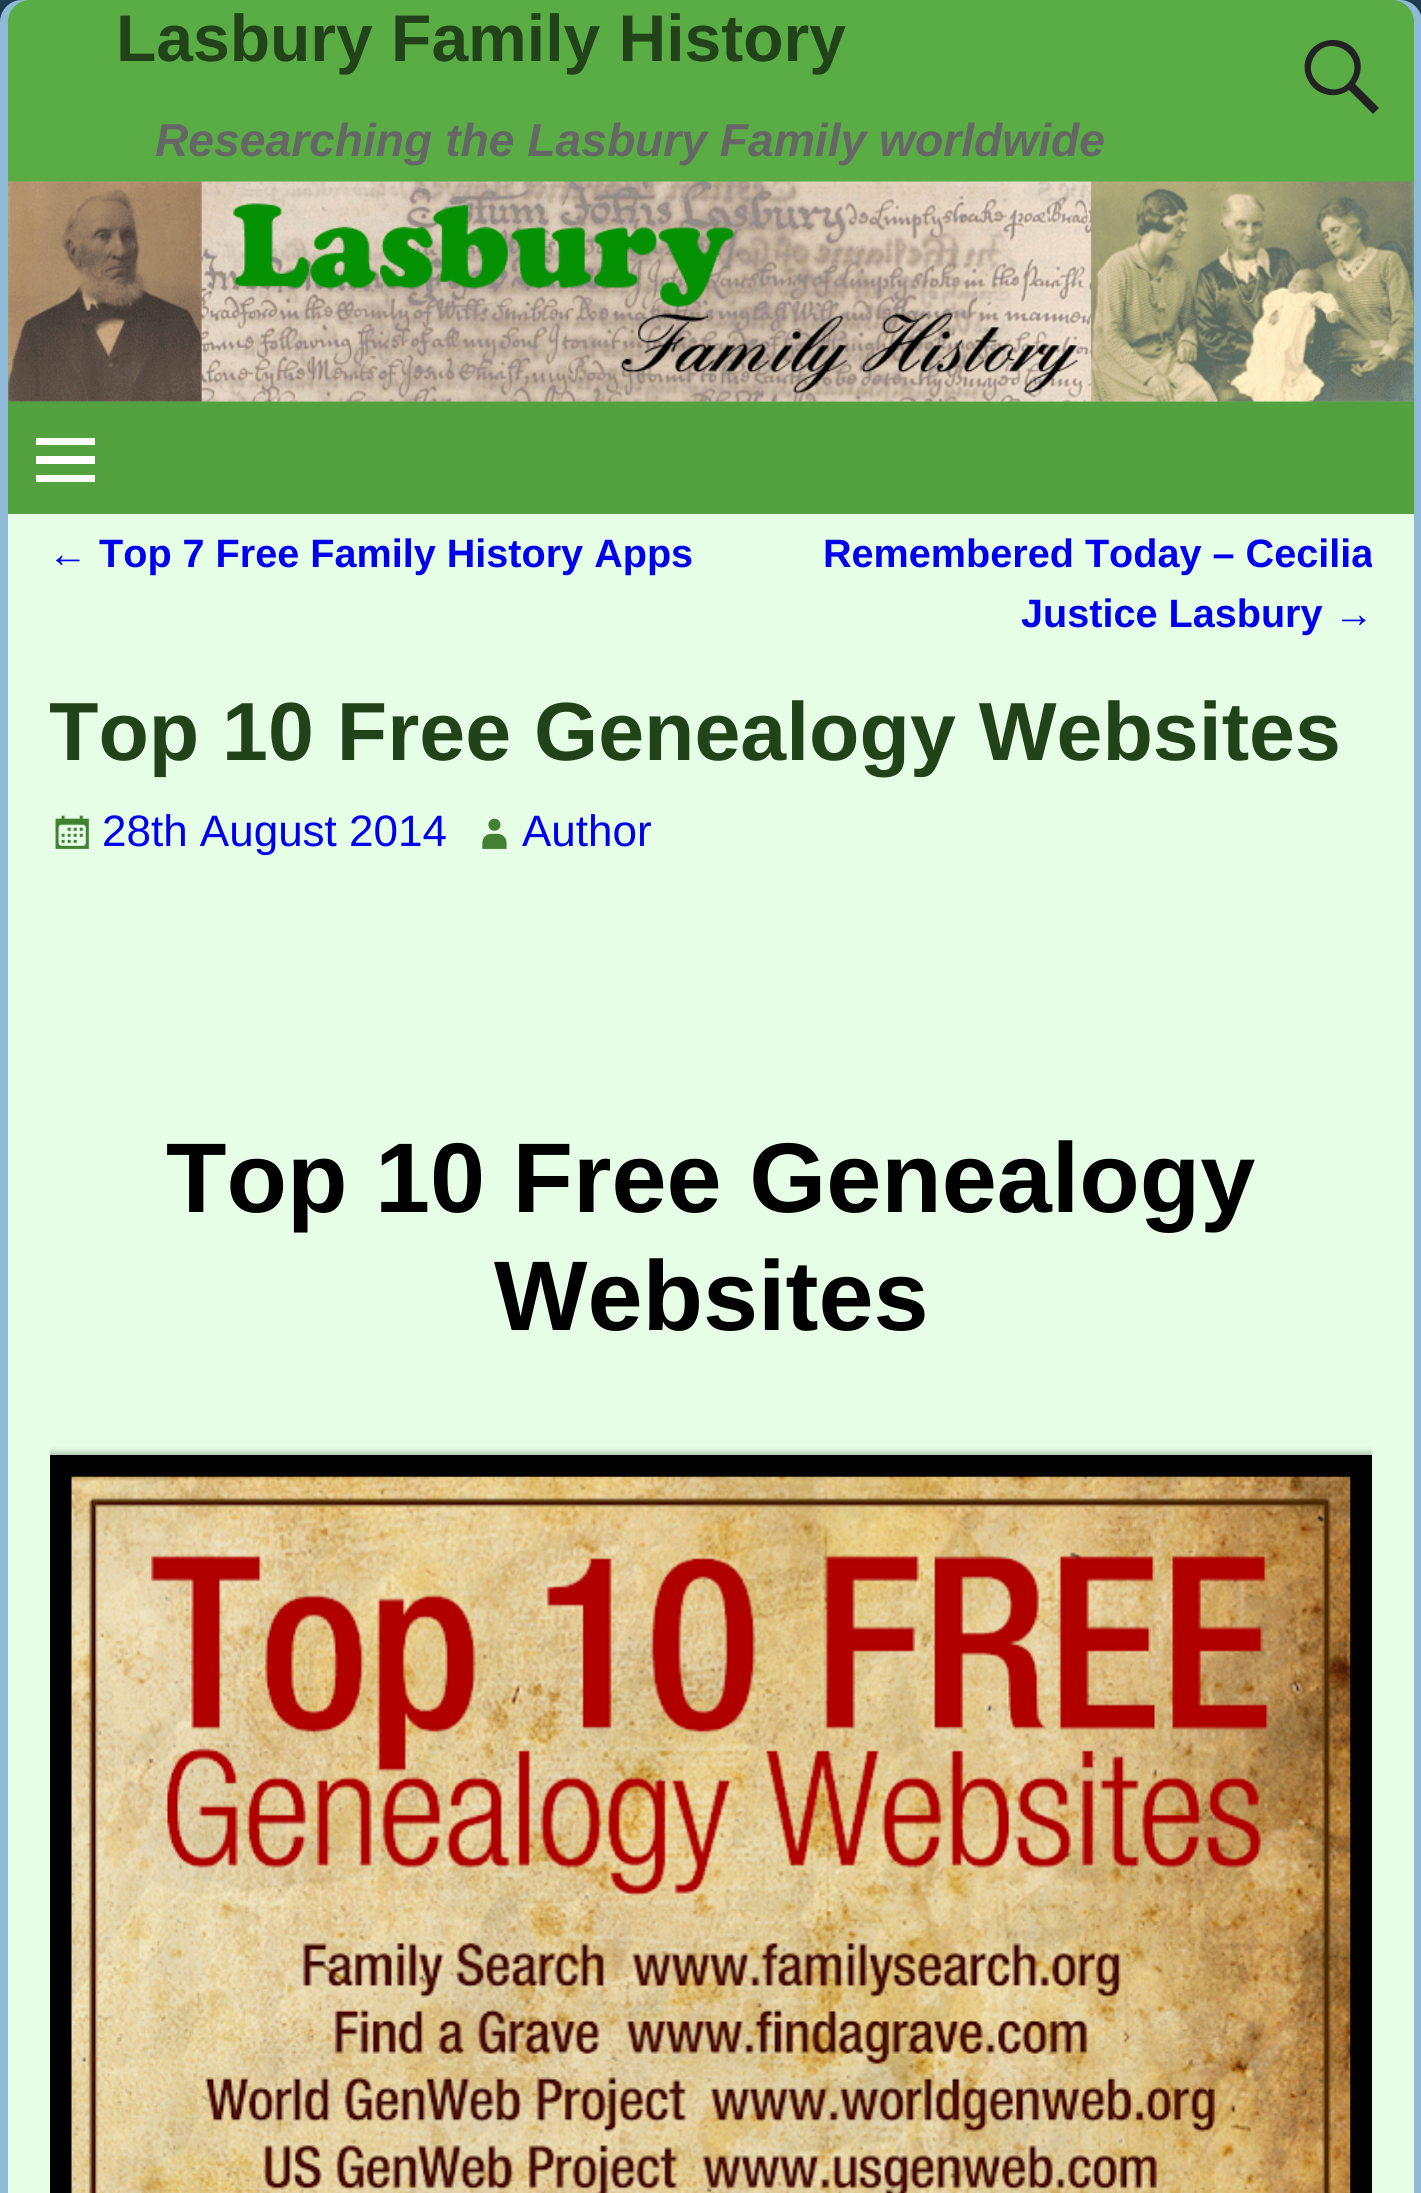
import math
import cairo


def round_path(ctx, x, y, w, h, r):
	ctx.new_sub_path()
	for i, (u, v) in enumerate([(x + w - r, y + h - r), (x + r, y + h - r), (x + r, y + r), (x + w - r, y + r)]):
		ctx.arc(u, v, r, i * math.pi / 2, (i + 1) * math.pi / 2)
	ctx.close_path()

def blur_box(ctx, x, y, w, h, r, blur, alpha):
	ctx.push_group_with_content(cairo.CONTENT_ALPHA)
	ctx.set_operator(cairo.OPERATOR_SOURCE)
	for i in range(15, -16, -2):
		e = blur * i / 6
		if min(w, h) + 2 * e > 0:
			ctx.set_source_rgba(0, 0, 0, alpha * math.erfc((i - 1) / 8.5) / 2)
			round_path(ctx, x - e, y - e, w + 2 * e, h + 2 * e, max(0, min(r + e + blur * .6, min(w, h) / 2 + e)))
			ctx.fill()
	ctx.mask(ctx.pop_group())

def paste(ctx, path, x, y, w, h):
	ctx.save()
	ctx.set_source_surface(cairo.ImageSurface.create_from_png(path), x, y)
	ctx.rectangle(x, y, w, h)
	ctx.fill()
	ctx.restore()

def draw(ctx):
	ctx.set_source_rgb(0.271, 0.573, 0.769)
	ctx.paint()
	paste(ctx, 'media/1.png', 0, 0, 1421, 22)
	ctx.set_source_rgb(0, 0, 0)
	blur_box(ctx, -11, -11, 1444, 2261, 33, 8, 0.25)
	ctx.set_source_rgb(0.557, 0.729, 0.843)
	round_path(ctx, 0, 0, 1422, 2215, 22)
	ctx.fill()
	ctx.set_source_rgb(0.349, 0.678, 0.267)
	ctx.new_path()
	ctx.move_to(30, 0)
	ctx.line_to(1392, 0)
	ctx.curve_to(1404, 0, 1414, 10, 1414, 22)
	ctx.line_to(1414, 514)
	ctx.line_to(8, 514)
	ctx.line_to(8, 22)
	ctx.curve_to(8, 10, 18, 0, 30, 0)
	ctx.close_path()
	ctx.fill()
	ctx.select_font_face('Liberation Sans', cairo.FONT_SLANT_NORMAL, cairo.FONT_WEIGHT_BOLD)
	ctx.set_font_size(66)
	ctx.set_source_rgb(0.133, 0.259, 0.102)
	ctx.move_to(116, 61)
	ctx.show_text('Lasbury Family History')
	ctx.set_source_rgb(0.133, 0.133, 0.133)
	ctx.new_path()
	ctx.move_to(1379, 108)
	ctx.line_to(1373, 114)
	ctx.line_to(1349, 90)
	ctx.curve_to(1335, 100, 1315, 95, 1308, 80)
	ctx.curve_to(1305, 75, 1304, 68, 1305, 62)
	ctx.curve_to(1311, 34, 1352, 32, 1360, 60)
	ctx.curve_to(1362, 69, 1360, 77, 1355, 84)
	ctx.close_path()
	ctx.move_to(1314, 57)
	ctx.curve_to(1300, 81, 1337, 103, 1351, 79)
	ctx.curve_to(1366, 54, 1328, 32, 1314, 57)
	ctx.close_path()
	ctx.fill()
	ctx.select_font_face('Liberation Sans', cairo.FONT_SLANT_ITALIC, cairo.FONT_WEIGHT_BOLD)
	ctx.set_font_size(46.2)
	ctx.set_source_rgb(0.4, 0.4, 0.4)
	ctx.move_to(155, 156)
	ctx.show_text('Researching the Lasbury Family worldwide')
	paste(ctx, 'media/2.png', 8, 181, 1406, 221)
	ctx.set_source_rgb(0.325, 0.631, 0.247)
	ctx.rectangle(8, 402, 1406, 112)
	ctx.fill()
	ctx.set_source_rgb(1, 1, 1)
	ctx.new_path()
	ctx.move_to(36, 482)
	ctx.line_to(36, 475)
	ctx.line_to(95, 475)
	ctx.line_to(95, 482)
	ctx.close_path()
	ctx.move_to(36, 438)
	ctx.line_to(95, 438)
	ctx.line_to(95, 445)
	ctx.line_to(36, 445)
	ctx.close_path()
	ctx.move_to(36, 464)
	ctx.line_to(36, 456)
	ctx.line_to(95, 456)
	ctx.line_to(95, 464)
	ctx.close_path()
	ctx.fill()
	ctx.set_source_rgb(0.902, 0.996, 0.902)
	ctx.rectangle(8, 514, 1406, 1679)
	ctx.fill()
	ctx.select_font_face('Liberation Sans')
	ctx.set_font_size(39.6)
	ctx.set_source_rgb(0, 0, 0.933)
	ctx.move_to(48, 567)
	ctx.show_text('←')
	ctx.select_font_face('Liberation Sans', cairo.FONT_SLANT_NORMAL, cairo.FONT_WEIGHT_BOLD)
	ctx.move_to(99, 567)
	ctx.show_text('Top 7 Free Family History Apps')
	ctx.save()
	ctx.rectangle(50, 525, 1322, 141)
	ctx.clip()
	ctx.move_to(823, 567)
	ctx.show_text('Remembered Today – Cecilia')
	ctx.restore()
	ctx.move_to(1021, 627)
	ctx.show_text('Justice Lasbury')
	ctx.select_font_face('Liberation Sans')
	ctx.move_to(1334, 627)
	ctx.show_text('→')
	ctx.save()
	ctx.rectangle(50, 666, 1322, 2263)
	ctx.clip()
	ctx.select_font_face('Liberation Sans', cairo.FONT_SLANT_NORMAL, cairo.FONT_WEIGHT_BOLD)
	ctx.set_font_size(82.5)
	ctx.set_source_rgb(0.133, 0.259, 0.102)
	ctx.move_to(48, 760)
	ctx.show_text('Top 10 Free Genealogy Websites')
	ctx.restore()
	paste(ctx, 'media/3.png', 55, 815, 34, 34)
	ctx.set_font_size(44)
	ctx.move_to(102, 846)
	ctx.show_text('28th August 2014')
	paste(ctx, 'media/4.png', 482, 818, 25, 31)
	ctx.move_to(522, 846)
	ctx.show_text('Author')
	ctx.select_font_face('Liberation Sans', cairo.FONT_SLANT_NORMAL, cairo.FONT_WEIGHT_BOLD)
	ctx.set_font_size(99)
	ctx.set_source_rgb(0, 0, 0)
	ctx.move_to(166, 1212)
	ctx.show_text('Top 10 Free Genealogy')
	ctx.move_to(494, 1330)
	ctx.show_text('Websites')
	ctx.save()
	ctx.rectangle(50, 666, 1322, 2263)
	ctx.clip()
	ctx.set_source_rgb(0, 0, 0)
	blur_box(ctx, 47, 1452, 1328, 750, 0, 3, 0.25)
	ctx.restore()
	ctx.rectangle(50, 1455, 1322, 738)
	ctx.fill()
	paste(ctx, 'media/5.png', 71, 1476, 1280, 717)


surface = cairo.ImageSurface(cairo.FORMAT_RGB24, 1421, 2193)
ctx = cairo.Context(surface)
options = cairo.FontOptions()
options.set_hint_metrics(cairo.HINT_METRICS_OFF)
options.set_hint_style(cairo.HINT_STYLE_NONE)
ctx.set_font_options(options)
ctx.set_miter_limit(4)
draw(ctx)
surface.write_to_png('image.png')
